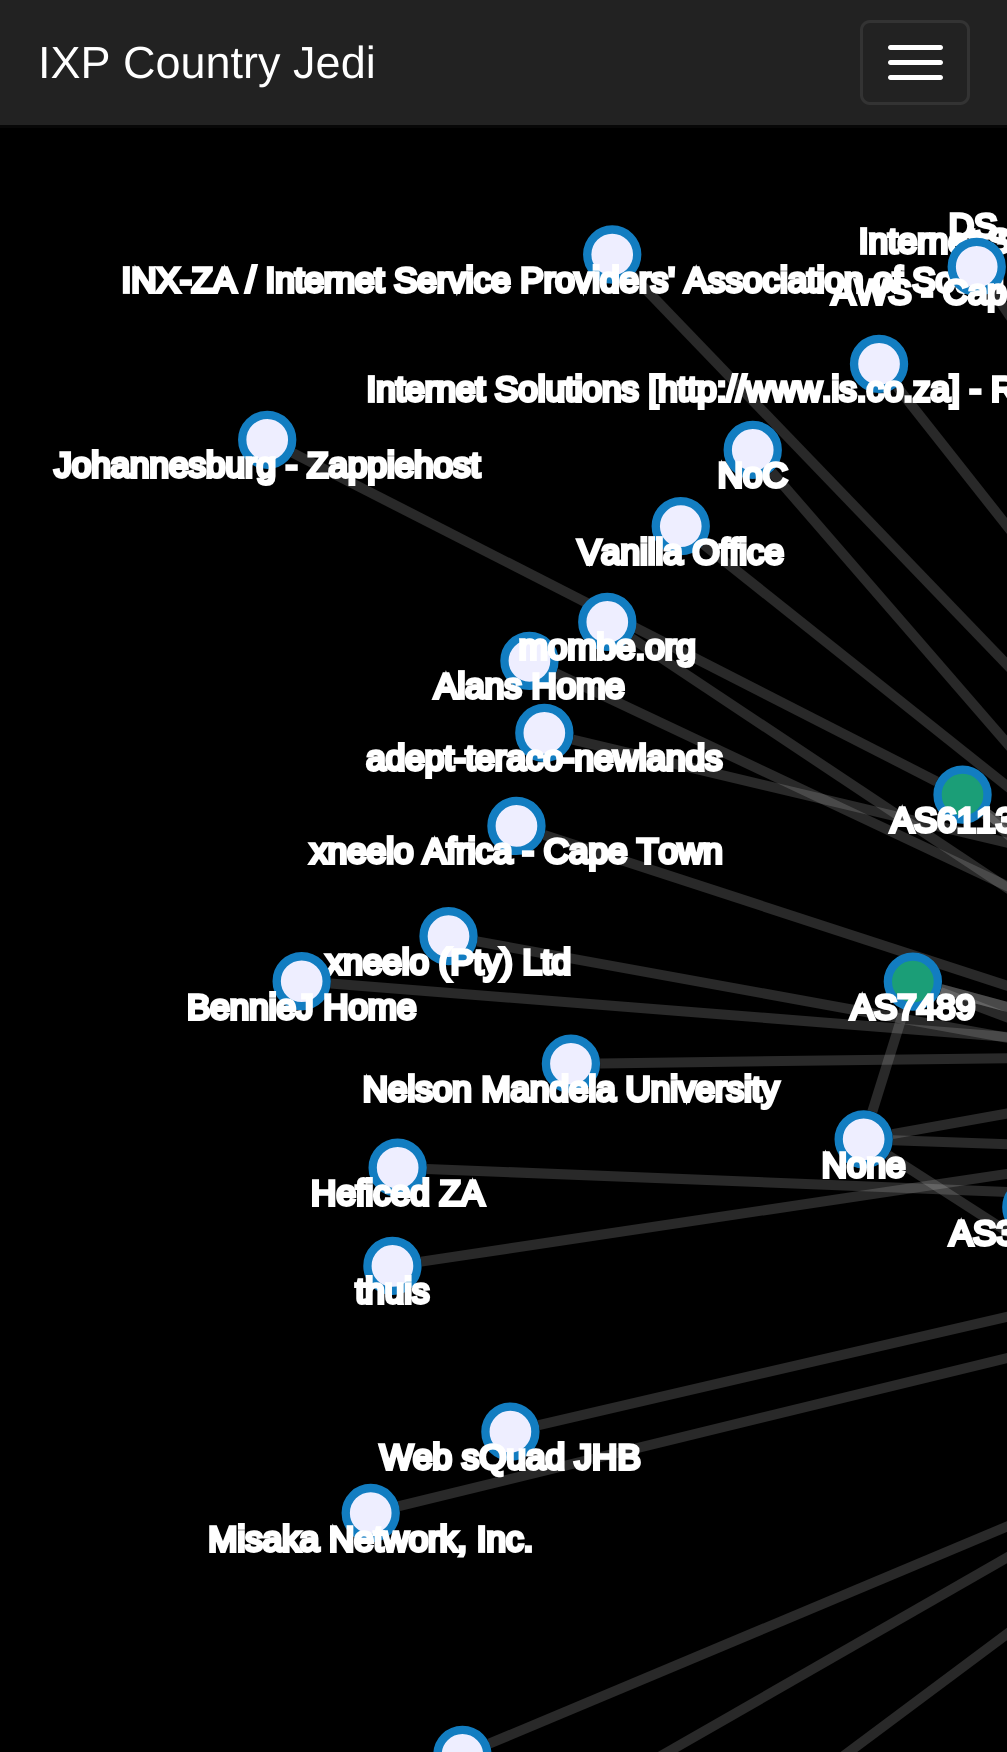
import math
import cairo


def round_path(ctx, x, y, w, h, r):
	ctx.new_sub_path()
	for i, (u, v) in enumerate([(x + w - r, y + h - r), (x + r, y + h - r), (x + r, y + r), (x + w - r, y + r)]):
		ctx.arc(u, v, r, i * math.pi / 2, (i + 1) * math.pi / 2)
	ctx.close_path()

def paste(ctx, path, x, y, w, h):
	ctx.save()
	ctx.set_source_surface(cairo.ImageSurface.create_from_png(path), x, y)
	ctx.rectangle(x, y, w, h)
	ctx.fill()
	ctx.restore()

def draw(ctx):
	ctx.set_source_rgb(0, 0, 0)
	ctx.paint()
	ctx.set_source_rgb(0.133, 0.133, 0.133)
	ctx.rectangle(0, 0, 1007, 125)
	ctx.fill()
	ctx.set_source_rgb(0.031, 0.031, 0.031)
	ctx.rectangle(0, 125, 1007, 3)
	ctx.fill()
	ctx.select_font_face('Liberation Sans')
	ctx.set_font_size(45)
	ctx.set_source_rgb(1, 1, 1)
	ctx.move_to(38, 78)
	ctx.show_text('IXP Country Jedi')
	round_path(ctx, 861.5, 21.5, 107, 82, 8.5)
	ctx.set_source_rgb(0.2, 0.2, 0.2)
	ctx.set_line_width(3)
	ctx.stroke()
	ctx.set_source_rgb(1, 1, 1)
	round_path(ctx, 888, 45, 55, 5, 2.5)
	ctx.fill()
	round_path(ctx, 888, 60, 55, 5, 2.5)
	ctx.fill()
	round_path(ctx, 888, 75, 55, 5, 2.5)
	ctx.fill()
	paste(ctx, 'media/1.png', 52, 212, 955, 1540)


surface = cairo.ImageSurface(cairo.FORMAT_RGB24, 1007, 1752)
ctx = cairo.Context(surface)
options = cairo.FontOptions()
options.set_hint_metrics(cairo.HINT_METRICS_OFF)
options.set_hint_style(cairo.HINT_STYLE_NONE)
ctx.set_font_options(options)
ctx.set_miter_limit(4)
draw(ctx)
surface.write_to_png('image.png')
